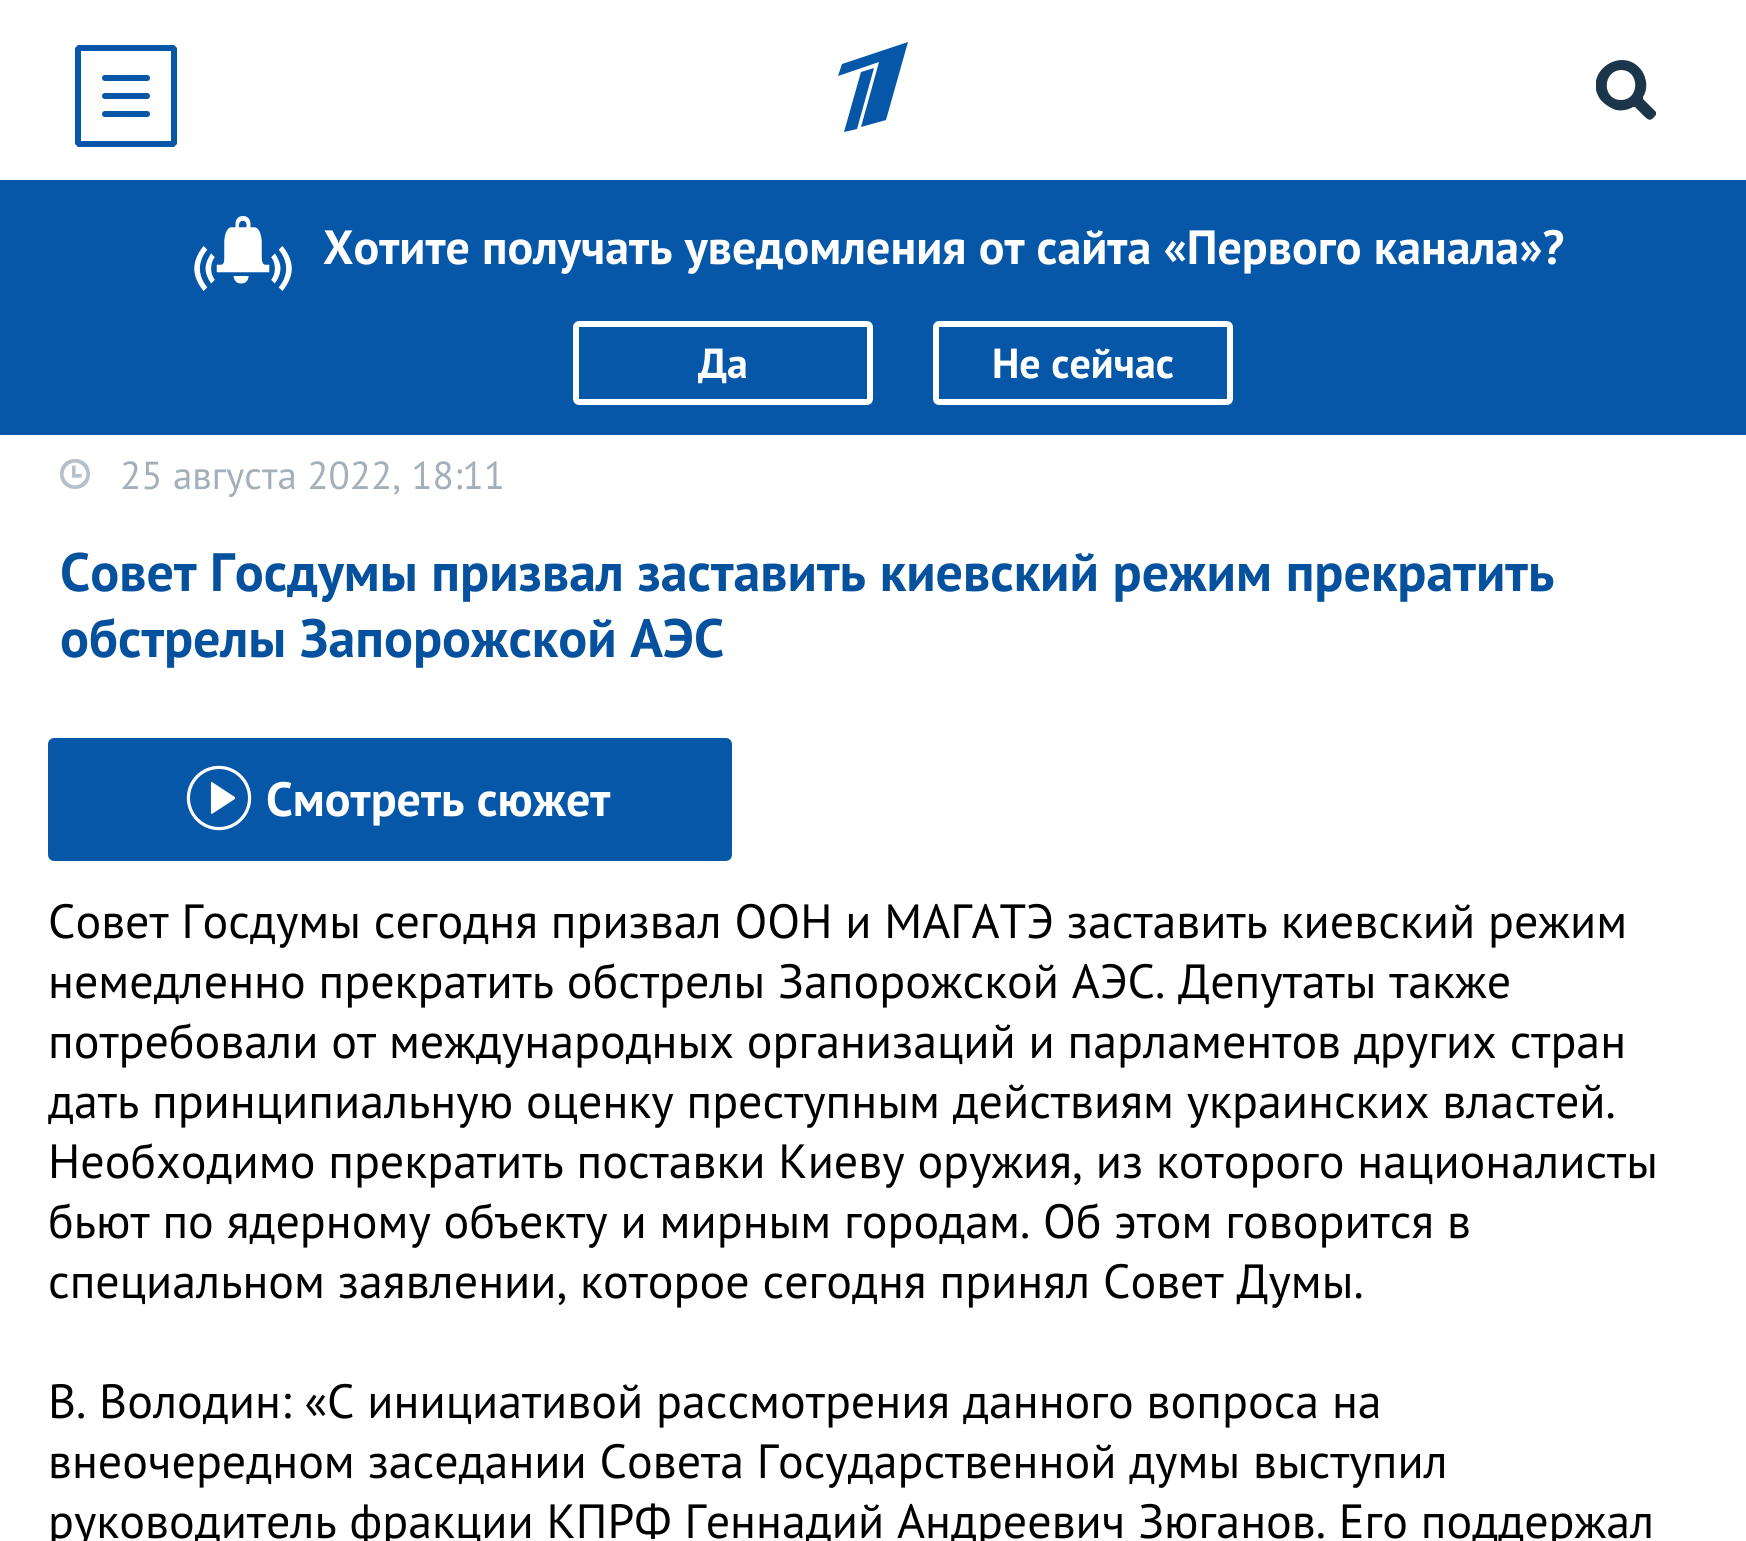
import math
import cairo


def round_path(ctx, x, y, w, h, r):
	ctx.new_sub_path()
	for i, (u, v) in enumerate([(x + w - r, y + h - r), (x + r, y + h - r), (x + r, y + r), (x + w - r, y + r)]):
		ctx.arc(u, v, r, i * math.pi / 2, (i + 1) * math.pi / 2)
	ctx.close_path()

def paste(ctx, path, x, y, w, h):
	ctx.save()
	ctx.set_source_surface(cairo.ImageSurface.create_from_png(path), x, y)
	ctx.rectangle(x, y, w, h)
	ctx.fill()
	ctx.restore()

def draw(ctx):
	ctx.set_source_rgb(1, 1, 1)
	ctx.paint()
	paste(ctx, 'media/1.png', 75, 45, 102, 102)
	ctx.set_source_rgb(0.027, 0.341, 0.659)
	ctx.new_path()
	ctx.move_to(842, 64)
	ctx.line_to(838, 76)
	ctx.line_to(879, 62)
	ctx.line_to(861, 127)
	ctx.line_to(886, 120)
	ctx.line_to(908, 42)
	ctx.close_path()
	ctx.move_to(861, 72)
	ctx.line_to(844, 132)
	ctx.line_to(857, 129)
	ctx.line_to(874, 68)
	ctx.close_path()
	ctx.fill()
	ctx.save()
	ctx.rectangle(1596, 60, 60, 60)
	ctx.clip()
	ctx.set_source_rgb(0.106, 0.208, 0.29)
	ctx.new_path()
	ctx.move_to(1643, 97)
	ctx.curve_to(1648, 89, 1647, 79, 1642, 71)
	ctx.curve_to(1623, 44, 1582, 72, 1600, 99)
	ctx.curve_to(1604, 104, 1610, 108, 1616, 110)
	ctx.curve_to(1622, 111, 1628, 110, 1633, 107)
	ctx.line_to(1635, 107)
	ctx.line_to(1644, 116)
	ctx.curve_to(1649, 121, 1651, 121, 1655, 116)
	ctx.curve_to(1656, 115, 1657, 113, 1656, 112)
	ctx.line_to(1643, 99)
	ctx.close_path()
	ctx.move_to(1621, 100)
	ctx.curve_to(1602, 100, 1602, 71, 1621, 70)
	ctx.curve_to(1640, 70, 1640, 100, 1621, 100)
	ctx.close_path()
	ctx.fill()
	ctx.restore()
	ctx.rectangle(0, 180, 1746, 255)
	ctx.fill()
	paste(ctx, 'media/2.png', 194, 216, 98, 75)
	ctx.select_font_face('PT Sans', cairo.FONT_SLANT_NORMAL, cairo.FONT_WEIGHT_BOLD)
	ctx.set_font_size(48)
	ctx.set_source_rgb(1, 1, 1)
	ctx.move_to(323, 264)
	ctx.show_text('Хотите получать уведомления от сайта «Первого канала»?')
	round_path(ctx, 576, 324, 294, 78, 3)
	ctx.set_line_width(6)
	ctx.stroke()
	ctx.set_font_size(42)
	ctx.move_to(698, 378)
	ctx.show_text('Да')
	round_path(ctx, 936, 324, 294, 78, 3)
	ctx.stroke()
	ctx.move_to(992, 378)
	ctx.show_text('Не сейчас')
	paste(ctx, 'media/3.png', 60, 459, 30, 30)
	ctx.select_font_face('PT Sans')
	ctx.set_font_size(39)
	ctx.set_source_rgb(0.639, 0.69, 0.725)
	ctx.move_to(120, 489)
	ctx.show_text('25 августа 2022, 18:11')
	ctx.select_font_face('PT Sans', cairo.FONT_SLANT_NORMAL, cairo.FONT_WEIGHT_BOLD)
	ctx.set_font_size(54)
	ctx.set_source_rgb(0.02, 0.318, 0.616)
	ctx.move_to(60, 591)
	ctx.show_text('Совет Госдумы призвал заставить киевский режим прекратить')
	ctx.move_to(60, 657)
	ctx.show_text('обстрелы Запорожской АЭС')
	ctx.set_source_rgb(0.027, 0.341, 0.659)
	round_path(ctx, 51, 741, 678, 117, 3)
	ctx.fill_preserve()
	ctx.stroke()
	paste(ctx, 'media/4.png', 186, 765, 66, 66)
	ctx.set_font_size(48)
	ctx.set_source_rgb(1, 1, 1)
	ctx.move_to(266, 816)
	ctx.show_text('Смотреть сюжет')
	ctx.select_font_face('PT Sans')
	ctx.set_source_rgb(0, 0, 0)
	for x, y, s in [
		(48, 938, 'Совет Госдумы сегодня призвал ООН и МАГАТЭ заставить киевский режим'),
		(48, 998, 'немедленно прекратить обстрелы Запорожской АЭС. Депутаты также'),
		(48, 1058, 'потребовали от международных организаций и парламентов других стран'),
		(48, 1118, 'дать принципиальную оценку преступным действиям украинских властей.'),
		(48, 1178, 'Необходимо прекратить поставки Киеву оружия, из которого националисты'),
		(48, 1238, 'бьют по ядерному объекту и мирным городам. Об этом говорится в'),
		(48, 1298, 'специальном заявлении, которое сегодня принял Совет Думы.'),
		(48, 1418, 'В. Володин: «С инициативой рассмотрения данного вопроса на'),
		(48, 1478, 'внеочередном заседании Совета Государственной думы выступил'),
		(48, 1538, 'руководитель фракции КПРФ Геннадий Андреевич Зюганов. Его поддержал'),
	]:
		ctx.move_to(x, y)
		ctx.show_text(s)


surface = cairo.ImageSurface(cairo.FORMAT_RGB24, 1746, 1541)
ctx = cairo.Context(surface)
options = cairo.FontOptions()
options.set_hint_metrics(cairo.HINT_METRICS_OFF)
options.set_hint_style(cairo.HINT_STYLE_NONE)
ctx.set_font_options(options)
ctx.set_miter_limit(4)
draw(ctx)
surface.write_to_png('image.png')
